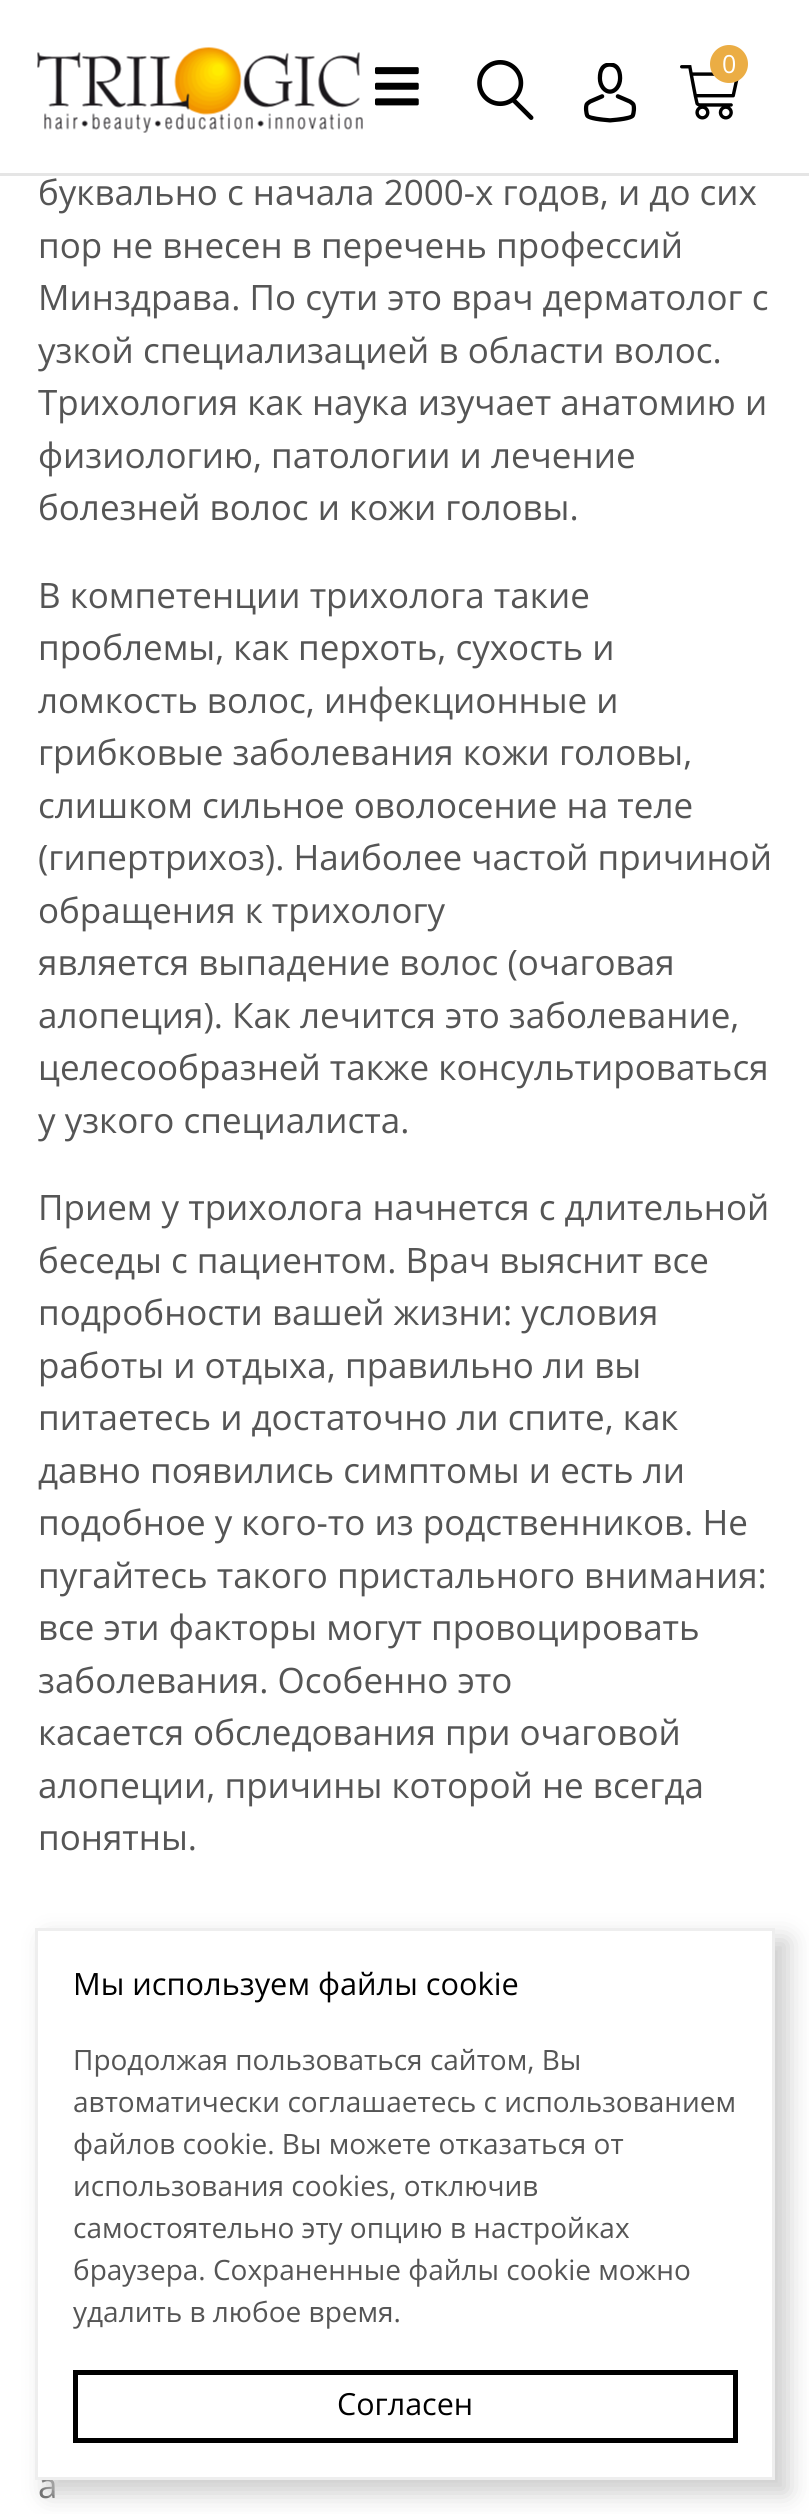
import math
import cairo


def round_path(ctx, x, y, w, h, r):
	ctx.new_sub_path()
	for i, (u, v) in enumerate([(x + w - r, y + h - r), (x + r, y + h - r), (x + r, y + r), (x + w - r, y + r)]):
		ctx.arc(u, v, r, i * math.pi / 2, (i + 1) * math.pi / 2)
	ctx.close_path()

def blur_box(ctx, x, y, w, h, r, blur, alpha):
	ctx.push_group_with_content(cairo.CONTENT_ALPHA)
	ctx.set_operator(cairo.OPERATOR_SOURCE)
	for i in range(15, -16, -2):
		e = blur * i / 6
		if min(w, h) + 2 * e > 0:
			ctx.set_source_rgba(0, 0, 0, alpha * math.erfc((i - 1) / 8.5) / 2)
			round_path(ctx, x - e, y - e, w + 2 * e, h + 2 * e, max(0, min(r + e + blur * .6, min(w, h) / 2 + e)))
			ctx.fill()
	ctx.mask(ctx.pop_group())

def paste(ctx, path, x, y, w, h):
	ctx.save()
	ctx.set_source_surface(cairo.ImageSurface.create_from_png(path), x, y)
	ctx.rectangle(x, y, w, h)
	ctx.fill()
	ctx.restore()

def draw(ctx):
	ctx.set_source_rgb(1, 1, 1)
	ctx.paint()
	ctx.set_source_rgb(0.898, 0.898, 0.898)
	ctx.rectangle(0, 173, 809, 3)
	ctx.fill()
	paste(ctx, 'media/1.png', 37, 47, 326, 86)
	paste(ctx, 'media/2.png', 375, 67, 44, 39)
	paste(ctx, 'media/3.png', 477, 60, 57, 60)
	paste(ctx, 'media/4.png', 583, 63, 54, 60)
	paste(ctx, 'media/5.png', 680, 65, 59, 55)
	ctx.set_source_rgb(0.918, 0.678, 0.267)
	ctx.arc(729, 64, 19, 0, 2 * math.pi)
	ctx.fill()
	ctx.select_font_face('Open Sans')
	ctx.set_font_size(25)
	ctx.set_source_rgb(1, 1, 1)
	ctx.move_to(722, 73)
	ctx.show_text('0')
	ctx.set_font_size(35)
	ctx.set_source_rgb(0.333, 0.333, 0.333)
	for x, y, s in [
		(38, 205, 'буквально с начала 2000-х годов, и до сих'),
		(38, 258, 'пор не внесен в перечень профессий'),
		(38, 310, 'Минздрава. По сути это врач дерматолог с'),
		(38, 363, 'узкой специализацией в области волос.'),
		(38, 415, 'Трихология как наука изучает анатомию и'),
		(38, 468, 'физиологию, патологии и лечение'),
		(38, 520, 'болезней волос и кожи головы.'),
		(38, 608, 'В компетенции трихолога такие'),
		(38, 660, 'проблемы, как перхоть, сухость и'),
		(38, 713, 'ломкость волос, инфекционные и'),
		(38, 765, 'грибковые заболевания кожи головы,'),
		(38, 818, 'слишком сильное оволосение на теле'),
		(38, 870, '(гипертрихоз). Наиболее частой причиной'),
		(38, 923, 'обращения к трихологу'),
		(38, 975, 'является выпадение волос (очаговая'),
		(38, 1028, 'алопеция). Как лечится это заболевание,'),
		(38, 1080, 'целесообразней также консультироваться'),
		(38, 1133, 'у узкого специалиста.'),
		(38, 1220, 'Прием у трихолога начнется с длительной'),
		(38, 1273, 'беседы с пациентом. Врач выяснит все'),
		(38, 1325, 'подробности вашей жизни: условия'),
		(38, 1378, 'работы и отдыха, правильно ли вы'),
		(38, 1430, 'питаетесь и достаточно ли спите, как'),
		(38, 1483, 'давно появились симптомы и есть ли'),
		(38, 1535, 'подобное у кого-то из родственников. Не'),
		(38, 1588, 'пугайтесь такого пристального внимания:'),
		(38, 1640, 'все эти факторы могут провоцировать'),
		(38, 1693, 'заболевания. Особенно это'),
		(38, 1745, 'касается обследования при очаговой'),
		(38, 1798, 'алопеции, причины которой не всегда'),
		(38, 1850, 'понятны.'),
		(38, 2498, 'а'),
	]:
		ctx.move_to(x, y)
		ctx.show_text(s)
	ctx.set_source_rgb(0.8, 0.8, 0.8)
	blur_box(ctx, 48, 1940, 740, 553, 0, 12.5, 1)
	ctx.set_source_rgb(1, 1, 1)
	ctx.rectangle(36.5, 1929.5, 737, 549)
	ctx.fill_preserve()
	ctx.set_source_rgb(0.933, 0.933, 0.933)
	ctx.set_line_width(3)
	ctx.stroke()
	ctx.set_font_size(30.75)
	ctx.set_source_rgb(0, 0, 0)
	ctx.move_to(73, 1995)
	ctx.show_text('Мы используем файлы cookie')
	ctx.set_font_size(28)
	ctx.set_source_rgb(0.333, 0.333, 0.333)
	for x, y, s in [
		(73, 2070, 'Продолжая пользоваться сайтом, Вы'),
		(73, 2112, 'автоматически соглашаетесь с использованием'),
		(73, 2154, 'файлов cookie. Вы можете отказаться от'),
		(73, 2196, 'использования cookies, отключив'),
		(73, 2238, 'самостоятельно эту опцию в настройках'),
		(73, 2280, 'браузера. Сохраненные файлы cookie можно'),
	]:
		ctx.move_to(x, y)
		ctx.show_text(s)
	ctx.save()
	ctx.rectangle(73, 1965, 665, 370)
	ctx.clip()
	ctx.move_to(73, 2322)
	ctx.show_text('удалить в любое время.')
	ctx.restore()
	ctx.rectangle(75.5, 2372.5, 660, 68)
	ctx.set_source_rgb(0, 0, 0)
	ctx.set_line_width(5)
	ctx.stroke()
	ctx.set_font_size(30.5)
	ctx.move_to(337, 2415)
	ctx.show_text('Согласен')


surface = cairo.ImageSurface(cairo.FORMAT_RGB24, 809, 2514)
ctx = cairo.Context(surface)
options = cairo.FontOptions()
options.set_hint_metrics(cairo.HINT_METRICS_OFF)
options.set_hint_style(cairo.HINT_STYLE_NONE)
ctx.set_font_options(options)
ctx.set_miter_limit(4)
draw(ctx)
surface.write_to_png('image.png')
